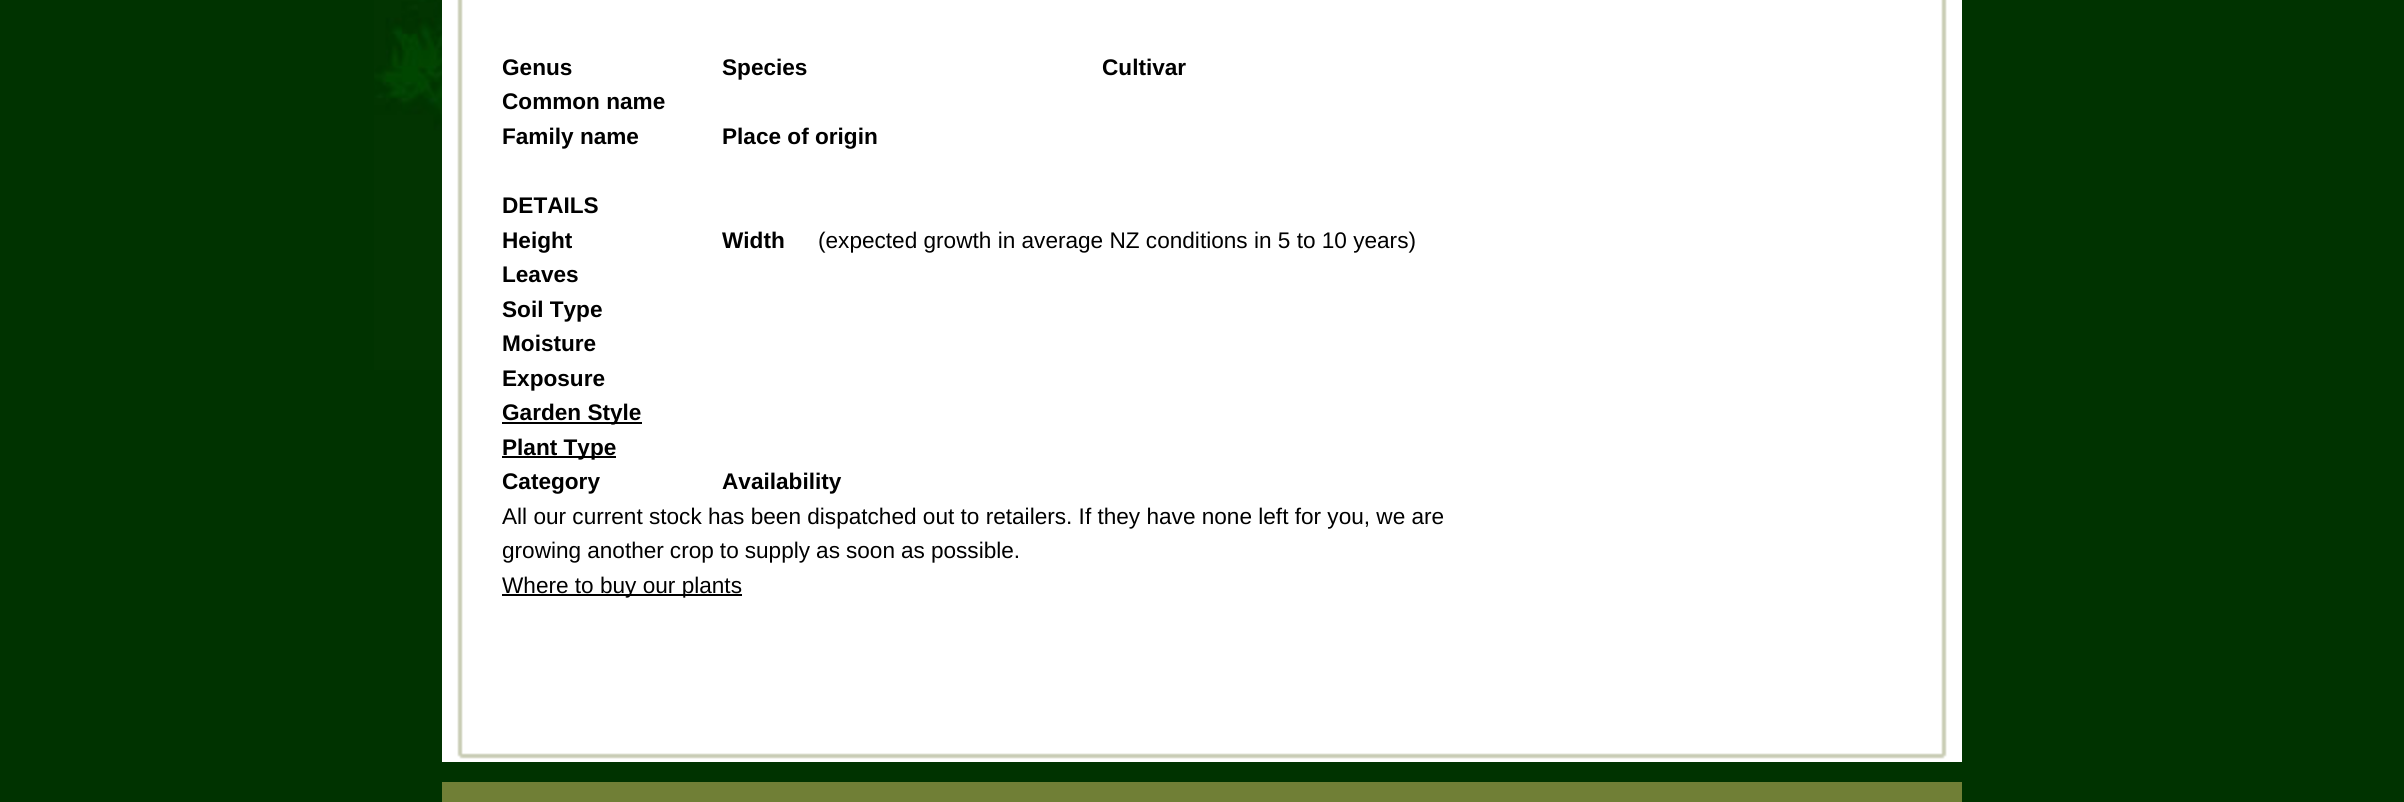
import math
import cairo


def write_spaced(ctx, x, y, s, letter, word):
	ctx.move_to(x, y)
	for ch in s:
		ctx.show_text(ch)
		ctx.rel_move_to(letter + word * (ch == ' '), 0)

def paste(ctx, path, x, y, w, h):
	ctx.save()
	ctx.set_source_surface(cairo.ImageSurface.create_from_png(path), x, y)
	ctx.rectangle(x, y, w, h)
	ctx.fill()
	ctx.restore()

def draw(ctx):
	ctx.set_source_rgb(0, 0.2, 0)
	ctx.paint()
	paste(ctx, 'media/1.png', 374, 0, 68, 370)
	paste(ctx, 'media/2.png', 442, 0, 1520, 762)
	ctx.select_font_face('Liberation Sans', cairo.FONT_SLANT_NORMAL, cairo.FONT_WEIGHT_BOLD)
	ctx.set_font_size(22.6)
	ctx.set_source_rgb(0, 0, 0)
	for x, y, s in [
		(502, 75, 'Genus'),
		(722, 75, 'Species'),
		(1102, 75, 'Cultivar'),
		(502, 109, 'Common name'),
		(502, 144, 'Family name'),
		(722, 144, 'Place of origin'),
		(502, 213, 'DETAILS'),
		(502, 248, 'Height'),
		(722, 248, 'Width'),
	]:
		ctx.move_to(x, y)
		ctx.show_text(s)
	ctx.select_font_face('Liberation Sans')
	ctx.move_to(818, 248)
	ctx.show_text('(expected growth in average NZ conditions in 5 to 10 years)')
	ctx.select_font_face('Liberation Sans', cairo.FONT_SLANT_NORMAL, cairo.FONT_WEIGHT_BOLD)
	for x, y, s in [
		(502, 282, 'Leaves'),
		(502, 317, 'Soil Type'),
		(502, 351, 'Moisture'),
		(502, 386, 'Exposure'),
	]:
		ctx.move_to(x, y)
		ctx.show_text(s)
	ctx.rectangle(502, 422, 140, 2)
	ctx.fill()
	ctx.move_to(502, 420)
	ctx.show_text('Garden Style')
	ctx.rectangle(502, 456, 114, 2)
	ctx.fill()
	for x, y, s in [
		(502, 455, 'Plant Type'),
		(502, 489, 'Category'),
		(722, 489, 'Availability'),
	]:
		ctx.move_to(x, y)
		ctx.show_text(s)
	ctx.select_font_face('Liberation Sans')
	ctx.move_to(502, 524)
	ctx.show_text('All our current stock has been dispatched out to retailers. If they have none left for you, we are')
	write_spaced(ctx, 502, 558, 'growing another crop to supply as soon as possible.', 0, -0.25)
	ctx.rectangle(502, 594, 240, 2)
	ctx.fill()
	ctx.move_to(502, 593)
	ctx.show_text('Where to buy our plants')
	paste(ctx, 'media/3.png', 457, 753, 1490, 9)
	ctx.set_source_rgb(0.439, 0.498, 0.212)
	ctx.rectangle(442, 782, 1520, 20)
	ctx.fill()


surface = cairo.ImageSurface(cairo.FORMAT_RGB24, 2404, 802)
ctx = cairo.Context(surface)
options = cairo.FontOptions()
options.set_hint_metrics(cairo.HINT_METRICS_OFF)
options.set_hint_style(cairo.HINT_STYLE_NONE)
ctx.set_font_options(options)
ctx.set_miter_limit(4)
draw(ctx)
surface.write_to_png('image.png')
